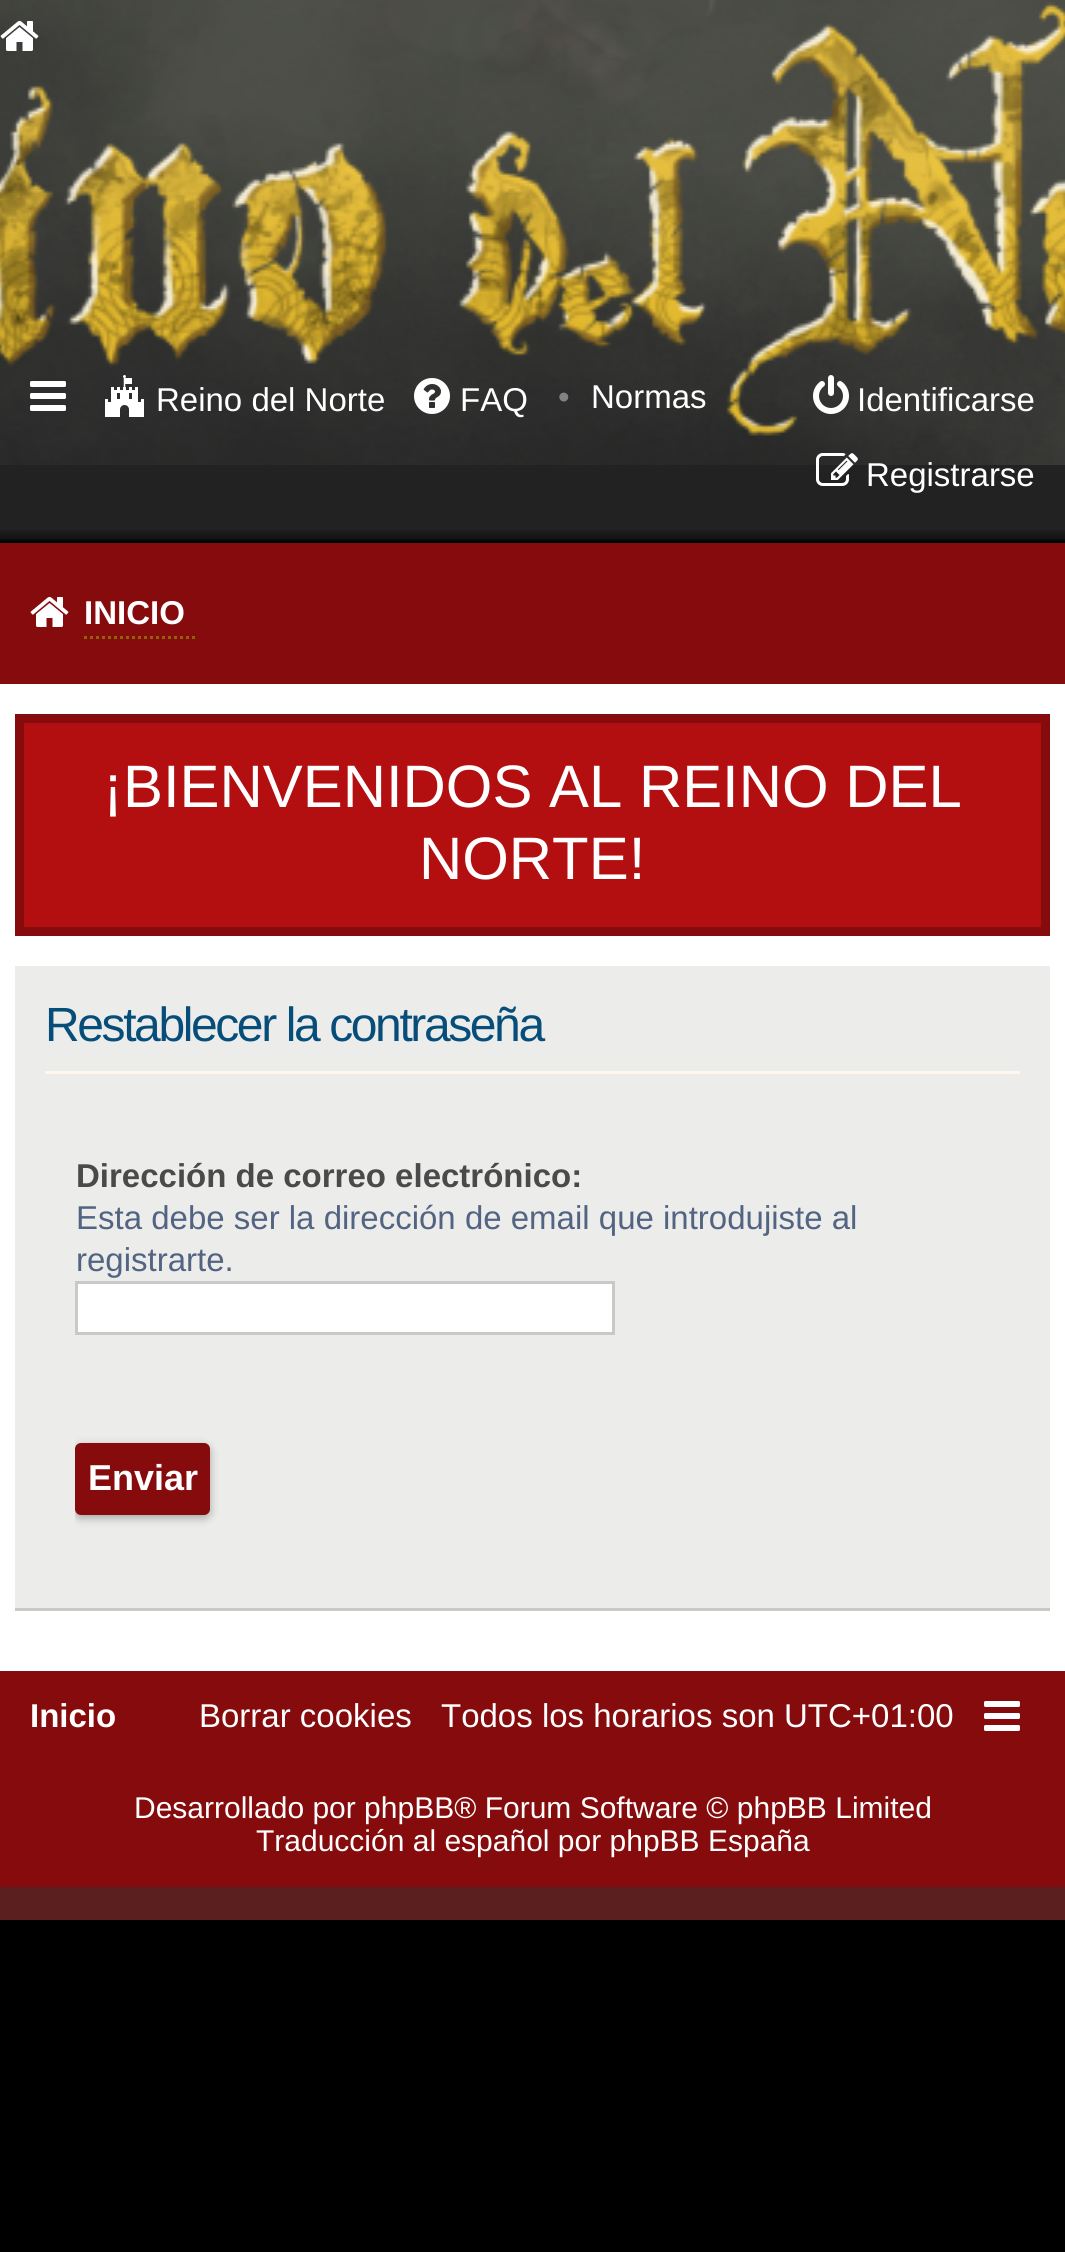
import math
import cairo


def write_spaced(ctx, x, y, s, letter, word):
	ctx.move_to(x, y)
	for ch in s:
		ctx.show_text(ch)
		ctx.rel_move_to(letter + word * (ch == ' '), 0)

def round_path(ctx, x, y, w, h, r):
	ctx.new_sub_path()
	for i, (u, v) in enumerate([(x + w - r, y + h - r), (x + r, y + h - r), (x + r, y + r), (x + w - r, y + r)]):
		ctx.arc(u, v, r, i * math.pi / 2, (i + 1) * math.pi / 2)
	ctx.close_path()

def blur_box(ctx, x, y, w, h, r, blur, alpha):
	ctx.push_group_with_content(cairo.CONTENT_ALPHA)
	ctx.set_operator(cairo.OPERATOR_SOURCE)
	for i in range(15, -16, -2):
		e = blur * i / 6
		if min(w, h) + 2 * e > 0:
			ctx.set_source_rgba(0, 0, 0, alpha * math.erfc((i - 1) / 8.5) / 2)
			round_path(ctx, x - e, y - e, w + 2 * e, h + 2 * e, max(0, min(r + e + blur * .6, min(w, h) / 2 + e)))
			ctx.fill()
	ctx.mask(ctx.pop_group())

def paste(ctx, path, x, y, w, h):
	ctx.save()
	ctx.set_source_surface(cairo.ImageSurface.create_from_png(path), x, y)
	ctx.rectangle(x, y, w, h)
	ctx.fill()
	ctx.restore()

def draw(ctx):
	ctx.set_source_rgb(0, 0, 0)
	ctx.paint()
	ctx.set_source_rgb(1, 1, 1)
	ctx.rectangle(0, 684, 1065, 987)
	ctx.fill()
	ctx.set_source_rgb(0.133, 0.133, 0.133)
	ctx.rectangle(0, 465, 1065, 76)
	ctx.fill()
	paste(ctx, 'media/1.png', 0, 0, 1065, 465)
	paste(ctx, 'media/2.png', 0, 530, 1065, 13)
	paste(ctx, 'media/3.png', 30, 381, 36, 30)
	paste(ctx, 'media/4.png', 105, 375, 39, 42)
	ctx.select_font_face('Liberation Sans')
	ctx.set_font_size(33)
	ctx.set_source_rgb(1, 1, 1)
	ctx.move_to(156, 411)
	ctx.show_text('Reino del Norte')
	paste(ctx, 'media/5.png', 414, 378, 36, 36)
	ctx.move_to(460, 411)
	ctx.show_text('FAQ')
	ctx.set_source_rgb(0.522, 0.502, 0.518)
	ctx.move_to(558, 408)
	ctx.show_text('•')
	ctx.set_source_rgb(1, 1, 1)
	ctx.move_to(591, 408)
	ctx.show_text('Normas')
	paste(ctx, 'media/6.png', 813, 375, 36, 39)
	ctx.move_to(857, 411)
	ctx.show_text('Identificarse')
	paste(ctx, 'media/7.png', 816, 453, 42, 33)
	ctx.move_to(866, 486)
	ctx.show_text('Registrarse')
	ctx.set_source_rgb(0.525, 0.043, 0.051)
	ctx.rectangle(0, 543, 1065, 141)
	ctx.fill()
	paste(ctx, 'media/8.png', 30, 596, 39, 31)
	ctx.select_font_face('Liberation Sans', cairo.FONT_SLANT_NORMAL, cairo.FONT_WEIGHT_BOLD)
	ctx.set_source_rgb(1, 1, 1)
	ctx.move_to(84, 624)
	ctx.show_text('INICIO')
	ctx.save()
	ctx.rectangle(75, 564, 120, 96)
	ctx.clip()
	ctx.new_path()
	ctx.move_to(84, 637.5)
	ctx.line_to(204, 637.5)
	ctx.set_source_rgb(0.549, 0.392, 0.027)
	ctx.set_line_width(3)
	ctx.set_dash([3, 3])
	ctx.stroke()
	ctx.restore()
	ctx.set_source_rgb(0.702, 0.059, 0.067)
	ctx.rectangle(19.5, 718.5, 1026, 213)
	ctx.fill_preserve()
	ctx.set_source_rgb(0.522, 0.043, 0.051)
	ctx.set_line_width(9)
	ctx.stroke()
	ctx.select_font_face('Liberation Sans')
	ctx.set_font_size(59.9)
	ctx.set_source_rgb(1, 1, 1)
	ctx.move_to(103, 807)
	ctx.show_text('¡BIENVENIDOS AL REINO DEL')
	ctx.move_to(419, 879)
	ctx.show_text('NORTE!')
	ctx.set_source_rgb(0.925, 0.922, 0.918)
	ctx.rectangle(15, 966, 1035, 642)
	ctx.fill()
	ctx.set_source_rgb(0.792, 0.788, 0.784)
	ctx.rectangle(15, 1608, 1035, 3)
	ctx.fill()
	ctx.set_source_rgb(1, 0.961, 0.933)
	ctx.rectangle(45, 1071, 975, 3)
	ctx.fill()
	ctx.set_font_size(48)
	ctx.set_source_rgb(0.027, 0.306, 0.475)
	write_spaced(ctx, 45, 1041, 'Restablecer la contraseña', -2.4, 0)
	ctx.select_font_face('Liberation Sans', cairo.FONT_SLANT_NORMAL, cairo.FONT_WEIGHT_BOLD)
	ctx.set_font_size(33)
	ctx.set_source_rgb(0.29, 0.29, 0.29)
	ctx.move_to(76, 1187)
	ctx.show_text('Dirección de correo electrónico:')
	ctx.select_font_face('Liberation Sans')
	ctx.set_source_rgb(0.325, 0.392, 0.51)
	ctx.move_to(76, 1229)
	ctx.show_text('Esta debe ser la dirección de email que introdujiste al')
	ctx.move_to(76, 1271)
	ctx.show_text('registrarte.')
	ctx.set_source_rgb(1, 1, 1)
	ctx.rectangle(76.5, 1282.5, 537, 51)
	ctx.fill_preserve()
	ctx.set_source_rgb(0.792, 0.788, 0.784)
	ctx.set_line_width(3)
	ctx.stroke()
	ctx.save()
	ctx.rectangle(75, 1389, 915, 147)
	ctx.clip()
	ctx.set_source_rgb(0, 0, 0)
	blur_box(ctx, 75, 1446, 135, 72, 6, 4.5, 0.3)
	ctx.restore()
	ctx.set_source_rgb(0.525, 0.043, 0.051)
	round_path(ctx, 75, 1443, 135, 72, 6)
	ctx.fill()
	ctx.select_font_face('Liberation Sans', cairo.FONT_SLANT_NORMAL, cairo.FONT_WEIGHT_BOLD)
	ctx.set_font_size(36)
	ctx.set_source_rgb(1, 1, 1)
	ctx.move_to(88, 1490)
	ctx.show_text('Enviar')
	ctx.set_source_rgb(0.522, 0.043, 0.051)
	ctx.rectangle(0, 1671, 1065, 216)
	ctx.fill()
	paste(ctx, 'media/9.png', 0, 20, 39, 31)
	ctx.set_font_size(33)
	ctx.set_source_rgb(1, 1, 1)
	ctx.move_to(30, 1727)
	ctx.show_text('Inicio')
	ctx.select_font_face('Liberation Sans')
	ctx.move_to(199, 1727)
	ctx.show_text('Borrar cookies')
	ctx.move_to(441, 1727)
	ctx.show_text('Todos los horarios son UTC+01:00')
	paste(ctx, 'media/10.png', 984, 1701, 36, 30)
	ctx.set_font_size(30)
	ctx.move_to(134, 1818)
	ctx.show_text('Desarrollado por phpBB® Forum Software © phpBB Limited')
	ctx.move_to(256, 1851)
	ctx.show_text('Traducción al español por phpBB España')
	ctx.set_source_rgb(0.361, 0.122, 0.125)
	ctx.rectangle(0, 1887, 1065, 33)
	ctx.fill()


surface = cairo.ImageSurface(cairo.FORMAT_RGB24, 1065, 2252)
ctx = cairo.Context(surface)
options = cairo.FontOptions()
options.set_hint_metrics(cairo.HINT_METRICS_OFF)
options.set_hint_style(cairo.HINT_STYLE_NONE)
ctx.set_font_options(options)
ctx.set_miter_limit(4)
draw(ctx)
surface.write_to_png('image.png')
